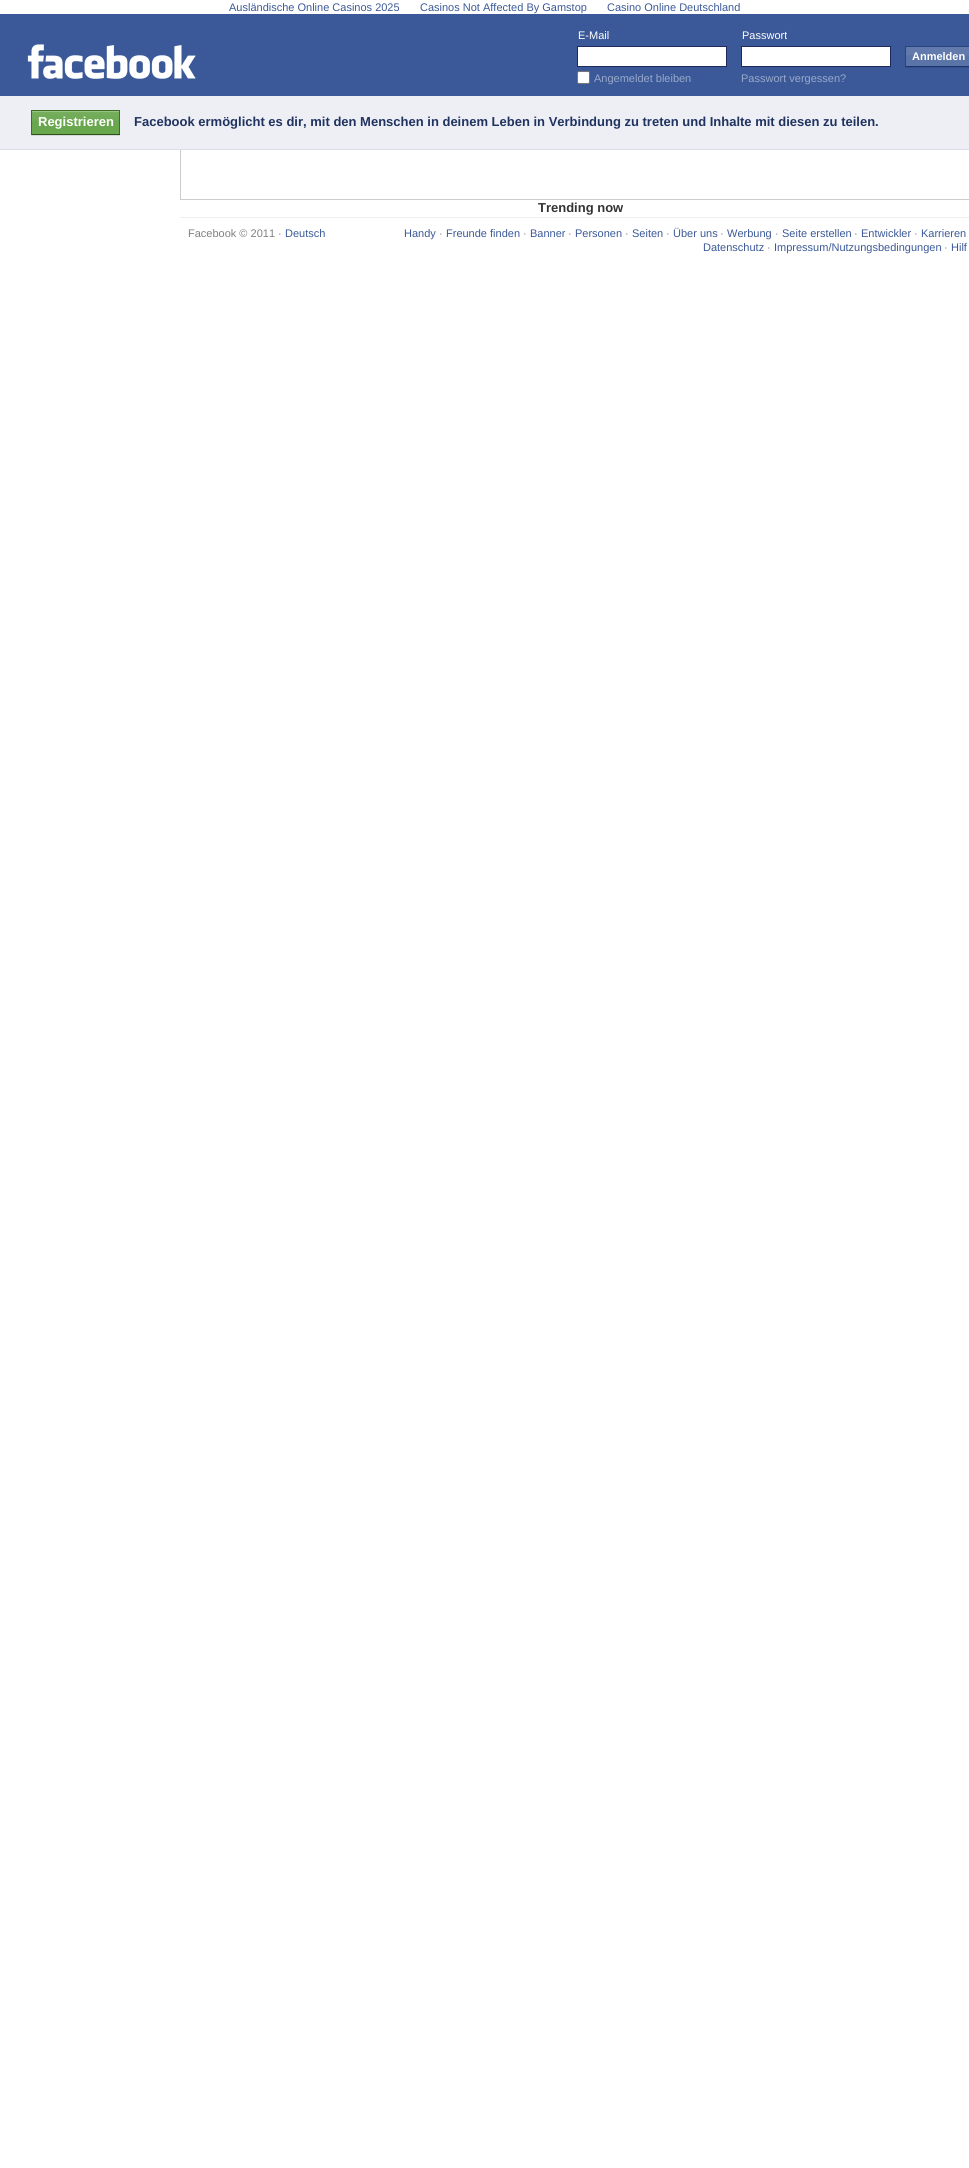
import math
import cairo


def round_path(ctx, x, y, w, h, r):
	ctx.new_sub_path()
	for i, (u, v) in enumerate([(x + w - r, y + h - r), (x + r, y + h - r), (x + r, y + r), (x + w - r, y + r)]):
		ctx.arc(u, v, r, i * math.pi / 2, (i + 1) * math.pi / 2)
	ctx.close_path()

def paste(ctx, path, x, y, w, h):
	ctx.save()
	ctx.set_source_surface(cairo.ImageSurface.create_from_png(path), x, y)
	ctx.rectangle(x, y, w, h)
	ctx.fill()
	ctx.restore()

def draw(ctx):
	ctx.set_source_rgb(1, 1, 1)
	ctx.paint()
	ctx.select_font_face('Liberation Sans')
	ctx.set_font_size(11)
	ctx.set_source_rgb(0.231, 0.349, 0.596)
	for x, y, s in [
		(229, 11, 'Ausländische Online Casinos 2025'),
		(420, 11, 'Casinos Not Affected By Gamstop'),
		(607, 11, 'Casino Online Deutschland'),
	]:
		ctx.move_to(x, y)
		ctx.show_text(s)
	ctx.rectangle(0, 14, 969, 82)
	ctx.fill()
	paste(ctx, 'media/1.png', 27, 44, 169, 35)
	ctx.set_source_rgb(1, 1, 1)
	ctx.move_to(578, 39)
	ctx.show_text('E-Mail')
	ctx.move_to(742, 39)
	ctx.show_text('Passwort')
	ctx.rectangle(577.5, 46.5, 149, 20)
	ctx.fill_preserve()
	ctx.set_source_rgb(0.114, 0.165, 0.357)
	ctx.set_line_width(1)
	ctx.stroke()
	ctx.set_source_rgb(1, 1, 1)
	ctx.rectangle(741.5, 46.5, 149, 20)
	ctx.fill_preserve()
	ctx.set_source_rgb(0.114, 0.165, 0.357)
	ctx.stroke()
	ctx.set_source_rgb(0.208, 0.314, 0.537)
	ctx.rectangle(905, 67, 64, 1)
	ctx.fill()
	ctx.set_source_rgb(0.357, 0.455, 0.659)
	ctx.rectangle(906, 55, 63, 11)
	ctx.fill()
	ctx.set_source_rgb(0.384, 0.478, 0.675)
	ctx.rectangle(906, 47, 63, 8)
	ctx.fill()
	ctx.set_source_rgb(0.161, 0.267, 0.494)
	ctx.rectangle(905, 46, 64, 1)
	ctx.fill()
	ctx.set_source_rgb(0.102, 0.208, 0.431)
	ctx.rectangle(905, 66, 64, 1)
	ctx.fill()
	ctx.set_source_rgb(0.161, 0.267, 0.494)
	ctx.rectangle(905, 46, 1, 21)
	ctx.fill()
	ctx.select_font_face('Liberation Sans', cairo.FONT_SLANT_NORMAL, cairo.FONT_WEIGHT_BOLD)
	ctx.set_source_rgb(1, 1, 1)
	ctx.move_to(912, 60)
	ctx.show_text('Anmelden')
	round_path(ctx, 577.5, 71.5, 12, 12, 1.5)
	ctx.fill_preserve()
	ctx.set_source_rgb(0.463, 0.463, 0.463)
	ctx.stroke()
	ctx.select_font_face('Liberation Sans')
	ctx.set_source_rgb(0.596, 0.663, 0.792)
	ctx.move_to(594, 82)
	ctx.show_text('Angemeldet bleiben')
	ctx.move_to(741, 82)
	ctx.show_text('Passwort vergessen?')
	ctx.set_source_rgb(0.929, 0.937, 0.957)
	ctx.rectangle(0, 96, 969, 53)
	ctx.fill()
	ctx.set_source_rgb(0.847, 0.875, 0.918)
	ctx.rectangle(0, 149, 969, 1)
	ctx.fill()
	ctx.set_source_rgb(0.835, 0.843, 0.863)
	ctx.rectangle(31, 135, 89, 1)
	ctx.fill()
	ctx.set_source_rgb(0.412, 0.655, 0.306)
	ctx.rectangle(32, 121, 87, 13)
	ctx.fill()
	paste(ctx, 'media/2.png', 32, 111, 87, 10)
	ctx.set_source_rgb(0.231, 0.431, 0.133)
	ctx.rectangle(31, 110, 89, 1)
	ctx.rectangle(119, 110, 1, 25)
	ctx.fill()
	ctx.set_source_rgb(0.173, 0.318, 0.082)
	ctx.rectangle(31, 134, 89, 1)
	ctx.fill()
	ctx.set_source_rgb(0.231, 0.431, 0.133)
	ctx.rectangle(31, 110, 1, 25)
	ctx.fill()
	ctx.select_font_face('Liberation Sans', cairo.FONT_SLANT_NORMAL, cairo.FONT_WEIGHT_BOLD)
	ctx.set_font_size(13)
	ctx.set_source_rgb(1, 1, 1)
	ctx.move_to(38, 126)
	ctx.show_text('Registrieren')
	ctx.set_source_rgb(0.125, 0.2, 0.376)
	ctx.move_to(134, 126)
	ctx.show_text('Facebook ermöglicht es dir, mit den Menschen in deinem Leben in Verbindung zu treten und Inhalte mit diesen zu teilen.')
	ctx.set_source_rgb(0.8, 0.8, 0.8)
	ctx.rectangle(180, 150, 1, 41)
	ctx.rectangle(180, 199, 789, 1)
	ctx.rectangle(180, 191, 1, 9)
	ctx.fill()
	ctx.set_source_rgb(0.2, 0.2, 0.2)
	ctx.move_to(538, 212)
	ctx.show_text('Trending now')
	ctx.set_source_rgb(0.933, 0.933, 0.933)
	ctx.rectangle(180, 217, 789, 1)
	ctx.fill()
	ctx.select_font_face('Liberation Sans')
	ctx.set_font_size(11)
	ctx.set_source_rgb(0.502, 0.502, 0.502)
	ctx.move_to(188, 237)
	ctx.show_text('Facebook © 2011 ·')
	ctx.set_source_rgb(0.231, 0.349, 0.596)
	ctx.move_to(285, 237)
	ctx.show_text('Deutsch')
	ctx.move_to(404, 237)
	ctx.show_text('Handy')
	ctx.set_source_rgb(0.502, 0.502, 0.502)
	ctx.move_to(439, 237)
	ctx.show_text('·')
	ctx.set_source_rgb(0.231, 0.349, 0.596)
	ctx.move_to(446, 237)
	ctx.show_text('Freunde finden')
	ctx.set_source_rgb(0.502, 0.502, 0.502)
	ctx.move_to(523, 237)
	ctx.show_text('·')
	ctx.set_source_rgb(0.231, 0.349, 0.596)
	ctx.move_to(530, 237)
	ctx.show_text('Banner')
	ctx.set_source_rgb(0.502, 0.502, 0.502)
	ctx.move_to(568, 237)
	ctx.show_text('·')
	ctx.set_source_rgb(0.231, 0.349, 0.596)
	ctx.move_to(575, 237)
	ctx.show_text('Personen')
	ctx.set_source_rgb(0.502, 0.502, 0.502)
	ctx.move_to(625, 237)
	ctx.show_text('·')
	ctx.set_source_rgb(0.231, 0.349, 0.596)
	ctx.move_to(632, 237)
	ctx.show_text('Seiten')
	ctx.set_source_rgb(0.502, 0.502, 0.502)
	ctx.move_to(666, 237)
	ctx.show_text('·')
	ctx.set_source_rgb(0.231, 0.349, 0.596)
	ctx.move_to(673, 237)
	ctx.show_text('Über uns')
	ctx.set_source_rgb(0.502, 0.502, 0.502)
	ctx.move_to(720, 237)
	ctx.show_text('·')
	ctx.set_source_rgb(0.231, 0.349, 0.596)
	ctx.move_to(727, 237)
	ctx.show_text('Werbung')
	ctx.set_source_rgb(0.502, 0.502, 0.502)
	ctx.move_to(775, 237)
	ctx.show_text('·')
	ctx.set_source_rgb(0.231, 0.349, 0.596)
	ctx.move_to(782, 237)
	ctx.show_text('Seite erstellen')
	ctx.set_source_rgb(0.502, 0.502, 0.502)
	ctx.move_to(854, 237)
	ctx.show_text('·')
	ctx.set_source_rgb(0.231, 0.349, 0.596)
	ctx.move_to(861, 237)
	ctx.show_text('Entwickler')
	ctx.set_source_rgb(0.502, 0.502, 0.502)
	ctx.move_to(914, 237)
	ctx.show_text('·')
	ctx.set_source_rgb(0.231, 0.349, 0.596)
	ctx.move_to(921, 237)
	ctx.show_text('Karrieren')
	ctx.move_to(703, 251)
	ctx.show_text('Datenschutz')
	ctx.set_source_rgb(0.502, 0.502, 0.502)
	ctx.move_to(767, 251)
	ctx.show_text('·')
	ctx.set_source_rgb(0.231, 0.349, 0.596)
	ctx.move_to(774, 251)
	ctx.show_text('Impressum/Nutzungsbedingungen')
	ctx.set_source_rgb(0.502, 0.502, 0.502)
	ctx.move_to(944, 251)
	ctx.show_text('·')
	ctx.set_source_rgb(0.231, 0.349, 0.596)
	ctx.move_to(951, 251)
	ctx.show_text('Hilf')


surface = cairo.ImageSurface(cairo.FORMAT_RGB24, 969, 2168)
ctx = cairo.Context(surface)
options = cairo.FontOptions()
options.set_hint_metrics(cairo.HINT_METRICS_OFF)
options.set_hint_style(cairo.HINT_STYLE_NONE)
ctx.set_font_options(options)
ctx.set_miter_limit(4)
draw(ctx)
surface.write_to_png('image.png')
